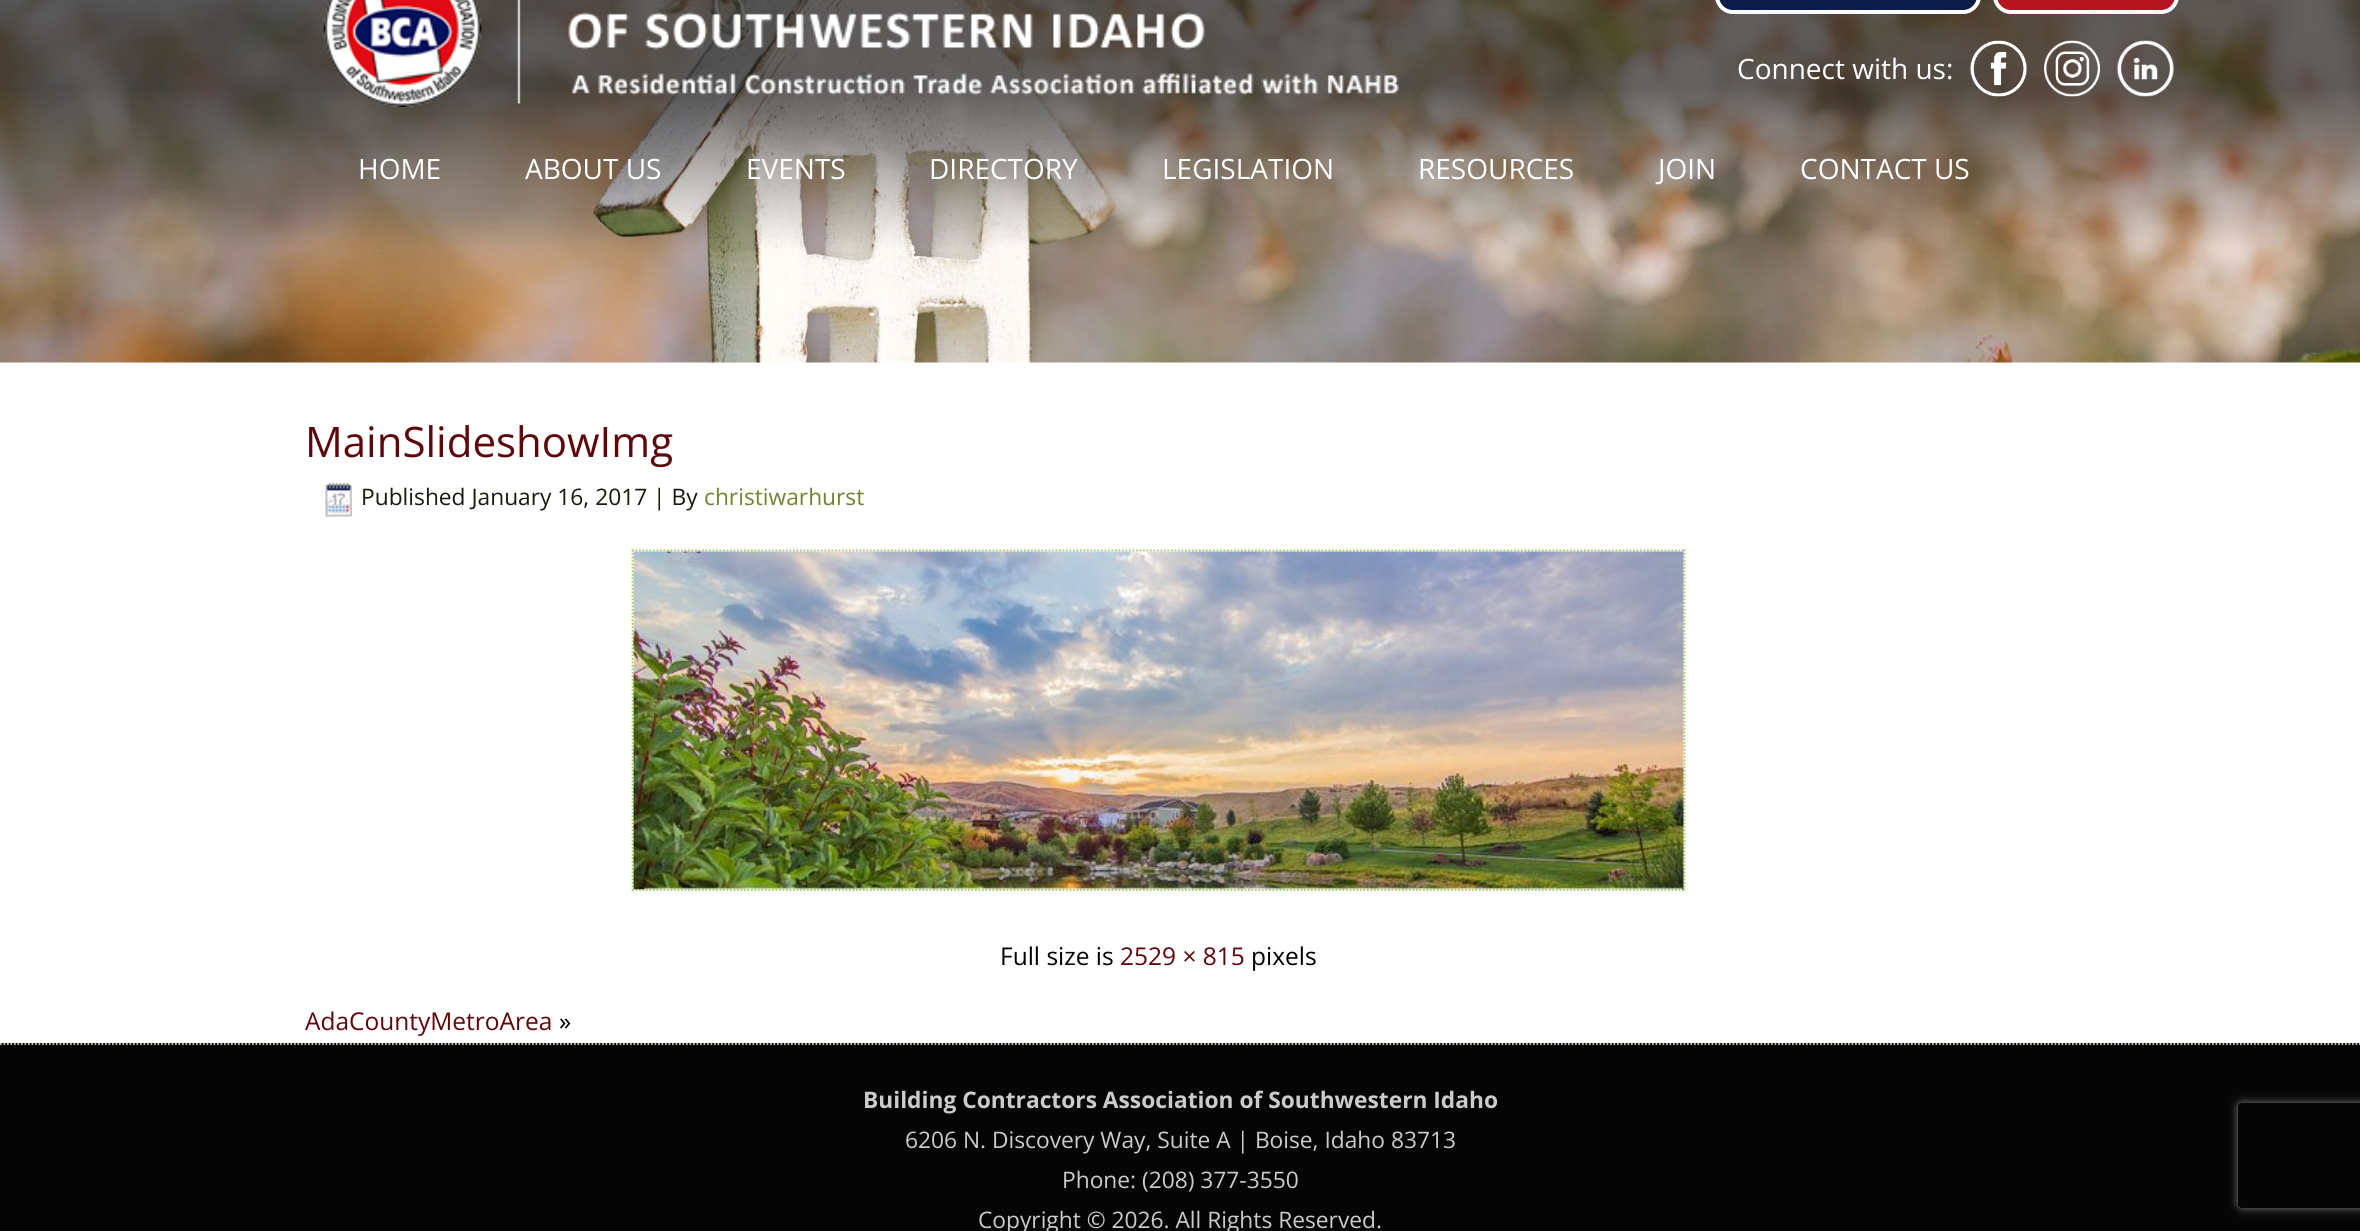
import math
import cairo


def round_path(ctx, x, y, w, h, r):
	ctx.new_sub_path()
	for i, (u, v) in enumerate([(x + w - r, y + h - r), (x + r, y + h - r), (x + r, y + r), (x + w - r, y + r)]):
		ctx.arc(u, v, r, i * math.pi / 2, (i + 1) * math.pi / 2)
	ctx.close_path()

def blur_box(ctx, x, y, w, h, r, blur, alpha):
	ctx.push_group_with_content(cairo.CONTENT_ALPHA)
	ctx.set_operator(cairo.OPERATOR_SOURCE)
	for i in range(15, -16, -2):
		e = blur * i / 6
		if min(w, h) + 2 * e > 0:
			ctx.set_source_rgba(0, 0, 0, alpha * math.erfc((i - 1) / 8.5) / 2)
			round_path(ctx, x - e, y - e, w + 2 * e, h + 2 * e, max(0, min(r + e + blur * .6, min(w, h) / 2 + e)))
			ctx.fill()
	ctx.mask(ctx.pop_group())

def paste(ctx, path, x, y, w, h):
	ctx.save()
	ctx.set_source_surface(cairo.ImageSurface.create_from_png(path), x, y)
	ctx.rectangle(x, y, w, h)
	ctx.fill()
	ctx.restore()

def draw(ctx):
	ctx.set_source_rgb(1, 1, 1)
	ctx.paint()
	paste(ctx, 'media/1.png', 0, 0, 2360, 363)
	paste(ctx, 'media/2.png', 323, 0, 1076, 107)
	ctx.set_source_rgb(0.047, 0.11, 0.282)
	round_path(ctx, 1717, -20, 262, 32, 16)
	ctx.fill_preserve()
	ctx.set_source_rgb(1, 1, 1)
	ctx.set_line_width(4)
	ctx.stroke()
	ctx.set_source_rgb(0.71, 0.082, 0.125)
	round_path(ctx, 1995, -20, 182, 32, 16)
	ctx.fill_preserve()
	ctx.set_source_rgb(1, 1, 1)
	ctx.stroke()
	ctx.select_font_face('Open Sans')
	ctx.set_font_size(28)
	ctx.move_to(1737, 79)
	ctx.show_text('Connect with us:')
	paste(ctx, 'media/3.png', 1970, 40, 57, 57)
	paste(ctx, 'media/4.png', 2044, 40, 56, 57)
	paste(ctx, 'media/5.png', 2117, 40, 57, 57)
	for x, y, s in [
		(358, 179, 'HOME'),
		(525, 179, 'ABOUT US'),
		(746, 179, 'EVENTS'),
		(929, 179, 'DIRECTORY'),
		(1162, 179, 'LEGISLATION'),
		(1418, 179, 'RESOURCES'),
		(1658, 179, 'JOIN'),
		(1800, 179, 'CONTACT US'),
	]:
		ctx.move_to(x, y)
		ctx.show_text(s)
	ctx.set_font_size(42)
	ctx.set_source_rgb(0.373, 0.024, 0.043)
	ctx.move_to(305, 457)
	ctx.show_text('MainSlideshowImg')
	paste(ctx, 'media/6.png', 325, 483, 27, 34)
	ctx.set_font_size(22.75)
	ctx.set_source_rgb(0.094, 0.102, 0.059)
	ctx.move_to(361, 505)
	ctx.show_text('Published January 16, 2017 | By')
	ctx.set_source_rgb(0.447, 0.51, 0.188)
	ctx.move_to(704, 505)
	ctx.show_text('christiwarhurst')
	ctx.new_path()
	ctx.move_to(632, 550.5)
	ctx.line_to(1685, 550.5)
	ctx.set_source_rgb(0.639, 0.8, 0.337)
	ctx.set_line_width(1.8)
	ctx.set_dash([1.75, 1.75])
	ctx.stroke()
	ctx.new_path()
	ctx.move_to(1684.5, 549.5)
	ctx.line_to(1684.5, 891)
	ctx.stroke()
	ctx.new_path()
	ctx.move_to(632, 890)
	ctx.line_to(1685, 890)
	ctx.stroke()
	ctx.new_path()
	ctx.move_to(632.5, 549.5)
	ctx.line_to(632.5, 891)
	ctx.stroke()
	paste(ctx, 'media/7.png', 633, 551, 1051, 339)
	ctx.set_font_size(24.5)
	ctx.set_source_rgb(0, 0, 0)
	ctx.move_to(1000, 965)
	ctx.show_text('Full size is')
	ctx.set_source_rgb(0.373, 0.024, 0.043)
	ctx.move_to(1120, 965)
	ctx.show_text('2529 × 815')
	ctx.set_source_rgb(0, 0, 0)
	ctx.move_to(1251, 965)
	ctx.show_text('pixels')
	ctx.set_source_rgb(0.373, 0.024, 0.043)
	ctx.move_to(305, 1030)
	ctx.show_text('AdaCountyMetroArea')
	ctx.set_source_rgb(0, 0, 0)
	ctx.move_to(559, 1030)
	ctx.show_text('»')
	ctx.set_source_rgb(0.02, 0.02, 0.024)
	ctx.rectangle(0, 1043, 2360, 188)
	ctx.fill()
	ctx.new_path()
	ctx.move_to(0, 1044)
	ctx.line_to(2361, 1044)
	ctx.set_source_rgb(0.804, 0.824, 0.694)
	ctx.stroke()
	ctx.select_font_face('Open Sans', cairo.FONT_SLANT_NORMAL, cairo.FONT_WEIGHT_BOLD)
	ctx.set_font_size(22.75)
	ctx.set_source_rgb(0.8, 0.8, 0.8)
	ctx.move_to(863, 1108)
	ctx.show_text('Building Contractors Association of Southwestern Idaho')
	ctx.select_font_face('Open Sans')
	for x, y, s in [
		(905, 1148, '6206 N. Discovery Way, Suite A | Boise, Idaho 83713'),
		(1062, 1188, 'Phone: (208) 377-3550'),
		(978, 1228, 'Copyright © 2026. All Rights Reserved.'),
	]:
		ctx.move_to(x, y)
		ctx.show_text(s)
	ctx.save()
	ctx.set_fill_rule(cairo.FILL_RULE_EVEN_ODD)
	ctx.new_path()
	ctx.move_to(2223, 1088)
	ctx.line_to(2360, 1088)
	ctx.line_to(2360, 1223)
	ctx.line_to(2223, 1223)
	ctx.close_path()
	ctx.move_to(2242, 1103)
	ctx.line_to(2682, 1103)
	ctx.curve_to(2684, 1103, 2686, 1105, 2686, 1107)
	ctx.line_to(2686, 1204)
	ctx.curve_to(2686, 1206, 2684, 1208, 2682, 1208)
	ctx.line_to(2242, 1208)
	ctx.curve_to(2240, 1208, 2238, 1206, 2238, 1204)
	ctx.line_to(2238, 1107)
	ctx.curve_to(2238, 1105, 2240, 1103, 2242, 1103)
	ctx.close_path()
	ctx.clip()
	ctx.set_source_rgb(0.502, 0.502, 0.502)
	blur_box(ctx, 2238, 1103, 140, 105, 4, 4.5, 1)
	ctx.restore()


surface = cairo.ImageSurface(cairo.FORMAT_RGB24, 2360, 1231)
ctx = cairo.Context(surface)
options = cairo.FontOptions()
options.set_hint_metrics(cairo.HINT_METRICS_OFF)
options.set_hint_style(cairo.HINT_STYLE_NONE)
ctx.set_font_options(options)
ctx.set_miter_limit(4)
draw(ctx)
surface.write_to_png('image.png')
